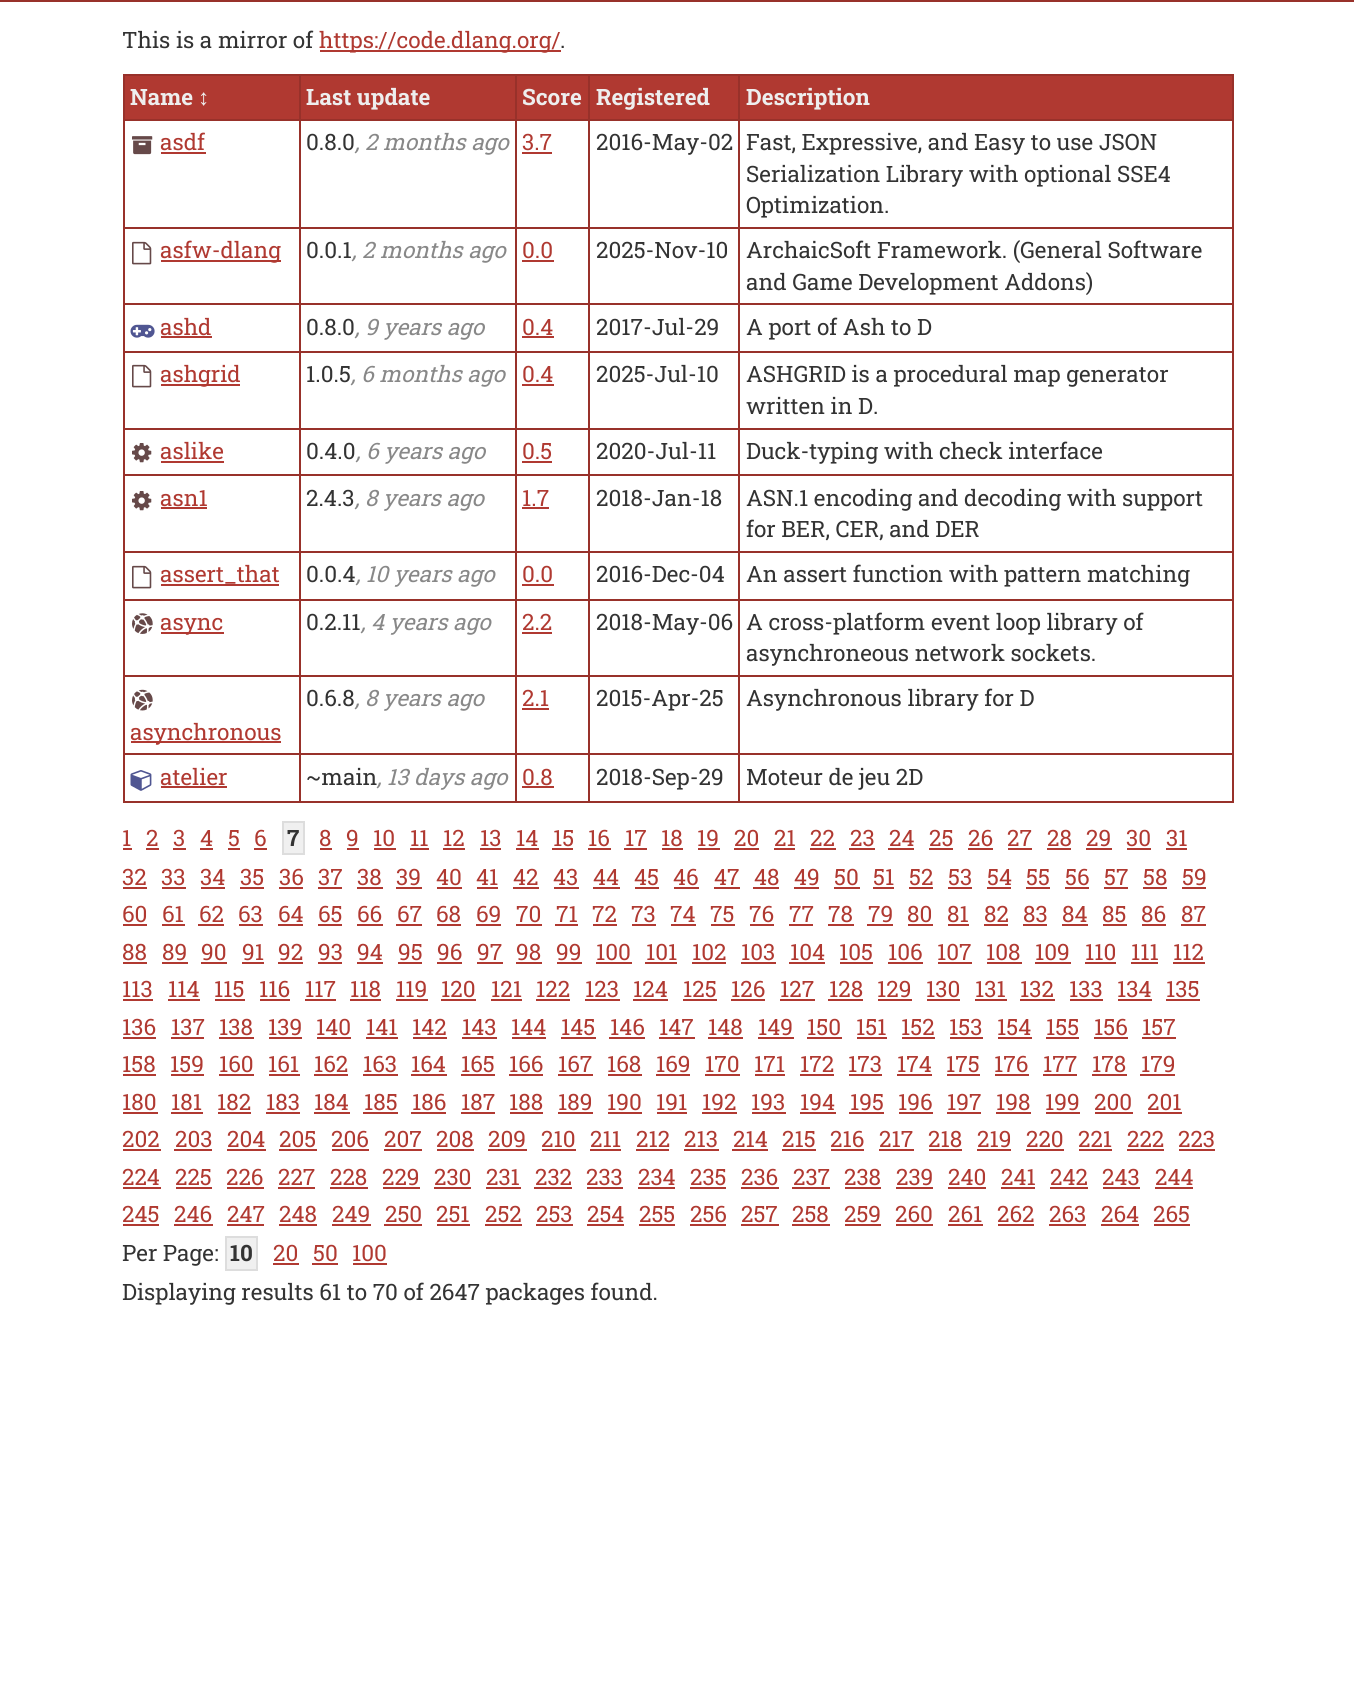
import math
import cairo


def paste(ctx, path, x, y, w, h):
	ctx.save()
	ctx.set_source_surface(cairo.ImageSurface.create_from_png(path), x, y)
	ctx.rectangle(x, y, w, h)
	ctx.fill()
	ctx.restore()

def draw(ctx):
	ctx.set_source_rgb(1, 1, 1)
	ctx.paint()
	ctx.set_source_rgb(0.596, 0.192, 0.165)
	ctx.rectangle(0, 0, 1354, 2)
	ctx.fill()
	ctx.select_font_face('Roboto Slab')
	ctx.set_font_size(22.5)
	ctx.set_source_rgb(0.2, 0.2, 0.2)
	ctx.move_to(122, 48)
	ctx.show_text('This is a mirror of')
	ctx.set_source_rgb(0.69, 0.224, 0.192)
	ctx.rectangle(320, 50, 241, 2)
	ctx.fill()
	ctx.move_to(319, 48)
	ctx.show_text('https://code.dlang.org/')
	ctx.set_source_rgb(0.2, 0.2, 0.2)
	ctx.move_to(560, 48)
	ctx.show_text('.')
	ctx.set_source_rgb(0.69, 0.224, 0.192)
	ctx.rectangle(125, 76, 174, 43)
	ctx.fill()
	ctx.set_source_rgb(0.596, 0.192, 0.165)
	ctx.rectangle(738, 74, 495, 2)
	ctx.rectangle(738, 119, 495, 2)
	ctx.rectangle(738, 227, 495, 2)
	ctx.rectangle(738, 303, 495, 2)
	ctx.rectangle(738, 351, 495, 2)
	ctx.rectangle(738, 428, 495, 2)
	ctx.rectangle(738, 474, 495, 2)
	ctx.rectangle(738, 551, 495, 2)
	ctx.rectangle(738, 599, 495, 2)
	ctx.rectangle(738, 675, 495, 2)
	ctx.rectangle(738, 753, 495, 2)
	ctx.rectangle(1232, 753, 2, 50)
	ctx.rectangle(738, 801, 495, 2)
	ctx.rectangle(738, 753, 2, 50)
	ctx.rectangle(588, 753, 152, 2)
	ctx.rectangle(738, 675, 2, 80)
	ctx.rectangle(588, 675, 152, 2)
	ctx.rectangle(738, 599, 2, 78)
	ctx.rectangle(588, 599, 152, 2)
	ctx.rectangle(738, 551, 2, 49)
	ctx.rectangle(588, 551, 152, 2)
	ctx.rectangle(738, 474, 2, 78)
	ctx.rectangle(588, 474, 152, 2)
	ctx.rectangle(738, 428, 2, 48)
	ctx.rectangle(588, 428, 152, 2)
	ctx.rectangle(738, 351, 2, 78)
	ctx.rectangle(588, 351, 152, 2)
	ctx.rectangle(738, 303, 2, 50)
	ctx.rectangle(588, 303, 152, 2)
	ctx.rectangle(738, 227, 2, 78)
	ctx.rectangle(588, 227, 152, 2)
	ctx.rectangle(738, 119, 2, 109)
	ctx.rectangle(588, 119, 152, 2)
	ctx.rectangle(738, 74, 2, 46)
	ctx.rectangle(588, 74, 152, 2)
	ctx.rectangle(588, 801, 152, 2)
	ctx.rectangle(588, 753, 2, 50)
	ctx.rectangle(515, 753, 75, 2)
	ctx.rectangle(588, 675, 2, 80)
	ctx.rectangle(515, 675, 75, 2)
	ctx.rectangle(588, 599, 2, 78)
	ctx.rectangle(515, 599, 75, 2)
	ctx.rectangle(588, 551, 2, 49)
	ctx.rectangle(515, 551, 75, 2)
	ctx.rectangle(588, 474, 2, 78)
	ctx.rectangle(515, 474, 75, 2)
	ctx.rectangle(588, 428, 2, 48)
	ctx.rectangle(515, 428, 75, 2)
	ctx.rectangle(588, 351, 2, 78)
	ctx.rectangle(515, 351, 75, 2)
	ctx.rectangle(588, 303, 2, 50)
	ctx.rectangle(515, 303, 75, 2)
	ctx.rectangle(588, 227, 2, 78)
	ctx.rectangle(515, 227, 75, 2)
	ctx.rectangle(588, 119, 2, 109)
	ctx.rectangle(515, 119, 75, 2)
	ctx.rectangle(588, 74, 2, 46)
	ctx.rectangle(515, 74, 75, 2)
	ctx.rectangle(515, 801, 75, 2)
	ctx.rectangle(515, 753, 2, 50)
	ctx.rectangle(299, 753, 217, 2)
	ctx.rectangle(515, 675, 2, 80)
	ctx.rectangle(299, 675, 217, 2)
	ctx.rectangle(515, 599, 2, 78)
	ctx.rectangle(299, 599, 217, 2)
	ctx.rectangle(515, 551, 2, 49)
	ctx.rectangle(299, 551, 217, 2)
	ctx.rectangle(515, 474, 2, 78)
	ctx.rectangle(299, 474, 217, 2)
	ctx.rectangle(515, 428, 2, 48)
	ctx.rectangle(299, 428, 217, 2)
	ctx.rectangle(515, 351, 2, 78)
	ctx.rectangle(299, 351, 217, 2)
	ctx.rectangle(515, 303, 2, 50)
	ctx.rectangle(299, 303, 217, 2)
	ctx.rectangle(515, 227, 2, 78)
	ctx.rectangle(299, 227, 217, 2)
	ctx.rectangle(515, 119, 2, 109)
	ctx.rectangle(299, 119, 217, 2)
	ctx.rectangle(515, 74, 2, 46)
	ctx.rectangle(299, 74, 217, 2)
	ctx.rectangle(299, 801, 217, 2)
	ctx.rectangle(299, 753, 2, 50)
	ctx.rectangle(123, 753, 177, 2)
	ctx.rectangle(299, 675, 2, 80)
	ctx.rectangle(123, 675, 177, 2)
	ctx.rectangle(299, 599, 2, 78)
	ctx.rectangle(123, 599, 177, 2)
	ctx.rectangle(299, 551, 2, 49)
	ctx.rectangle(123, 551, 177, 2)
	ctx.rectangle(299, 474, 2, 78)
	ctx.rectangle(123, 474, 177, 2)
	ctx.rectangle(299, 428, 2, 48)
	ctx.rectangle(123, 428, 177, 2)
	ctx.rectangle(299, 351, 2, 78)
	ctx.rectangle(123, 351, 177, 2)
	ctx.rectangle(299, 303, 2, 50)
	ctx.rectangle(123, 303, 177, 2)
	ctx.rectangle(299, 227, 2, 78)
	ctx.rectangle(123, 227, 177, 2)
	ctx.rectangle(299, 119, 2, 109)
	ctx.rectangle(123, 119, 177, 2)
	ctx.rectangle(299, 74, 2, 46)
	ctx.rectangle(123, 74, 177, 2)
	ctx.rectangle(123, 801, 177, 2)
	ctx.rectangle(123, 753, 2, 50)
	ctx.rectangle(123, 675, 2, 80)
	ctx.rectangle(123, 599, 2, 78)
	ctx.rectangle(123, 551, 2, 49)
	ctx.rectangle(123, 474, 2, 78)
	ctx.rectangle(123, 428, 2, 48)
	ctx.rectangle(123, 351, 2, 78)
	ctx.rectangle(123, 303, 2, 50)
	ctx.rectangle(123, 227, 2, 78)
	ctx.rectangle(123, 119, 2, 109)
	ctx.rectangle(123, 74, 2, 46)
	ctx.fill()
	ctx.select_font_face('Roboto Slab', cairo.FONT_SLANT_NORMAL, cairo.FONT_WEIGHT_BOLD)
	ctx.set_source_rgb(0.933, 0.933, 0.933)
	ctx.move_to(130, 105)
	ctx.show_text('Name')
	ctx.select_font_face('Liberation Sans', cairo.FONT_SLANT_NORMAL, cairo.FONT_WEIGHT_BOLD)
	ctx.move_to(198, 105)
	ctx.show_text('↕')
	ctx.set_source_rgb(0.69, 0.224, 0.192)
	ctx.rectangle(301, 76, 214, 43)
	ctx.fill()
	ctx.select_font_face('Roboto Slab', cairo.FONT_SLANT_NORMAL, cairo.FONT_WEIGHT_BOLD)
	ctx.set_source_rgb(0.933, 0.933, 0.933)
	ctx.move_to(306, 105)
	ctx.show_text('Last update')
	ctx.set_source_rgb(0.69, 0.224, 0.192)
	ctx.rectangle(517, 76, 71, 43)
	ctx.fill()
	ctx.set_source_rgb(0.933, 0.933, 0.933)
	ctx.move_to(522, 105)
	ctx.show_text('Score')
	ctx.set_source_rgb(0.69, 0.224, 0.192)
	ctx.rectangle(590, 76, 148, 43)
	ctx.fill()
	ctx.set_source_rgb(0.933, 0.933, 0.933)
	ctx.move_to(596, 105)
	ctx.show_text('Registered')
	ctx.set_source_rgb(0.69, 0.224, 0.192)
	ctx.rectangle(740, 76, 492, 43)
	ctx.fill()
	ctx.set_source_rgb(0.596, 0.192, 0.165)
	ctx.rectangle(1232, 675, 2, 80)
	ctx.rectangle(1232, 599, 2, 78)
	ctx.rectangle(1232, 551, 2, 49)
	ctx.rectangle(1232, 474, 2, 78)
	ctx.rectangle(1232, 428, 2, 48)
	ctx.rectangle(1232, 351, 2, 78)
	ctx.rectangle(1232, 303, 2, 50)
	ctx.rectangle(1232, 227, 2, 78)
	ctx.rectangle(1232, 119, 2, 109)
	ctx.rectangle(1232, 74, 2, 46)
	ctx.fill()
	ctx.set_source_rgb(0.933, 0.933, 0.933)
	ctx.move_to(746, 105)
	ctx.show_text('Description')
	paste(ctx, 'media/1.png', 132, 136, 21, 19)
	ctx.select_font_face('Roboto Slab')
	ctx.set_source_rgb(0.69, 0.224, 0.192)
	ctx.move_to(160, 150)
	ctx.show_text('asdf')
	ctx.rectangle(161, 152, 45, 2)
	ctx.fill()
	ctx.set_source_rgb(0.2, 0.2, 0.2)
	ctx.move_to(306, 150)
	ctx.show_text('0.8.0')
	ctx.select_font_face('Roboto Slab', cairo.FONT_SLANT_ITALIC)
	ctx.set_source_rgb(0.533, 0.533, 0.533)
	ctx.move_to(355, 150)
	ctx.show_text(', 2 months ago')
	ctx.select_font_face('Roboto Slab')
	ctx.set_source_rgb(0.69, 0.224, 0.192)
	ctx.move_to(522, 150)
	ctx.show_text('3.7')
	ctx.rectangle(522, 152, 30, 2)
	ctx.fill()
	ctx.set_source_rgb(0.2, 0.2, 0.2)
	for x, y, s in [
		(596, 150, '2016-May-02'),
		(746, 150, 'Fast, Expressive, and Easy to use JSON'),
		(746, 182, 'Serialization Library with optional SSE4'),
		(746, 213, 'Optimization.'),
	]:
		ctx.move_to(x, y)
		ctx.show_text(s)
	paste(ctx, 'media/2.png', 132, 241, 20, 24)
	ctx.set_source_rgb(0.69, 0.224, 0.192)
	ctx.rectangle(161, 260, 120, 2)
	ctx.fill()
	ctx.move_to(160, 258)
	ctx.show_text('asfw-dlang')
	ctx.set_source_rgb(0.2, 0.2, 0.2)
	ctx.move_to(306, 258)
	ctx.show_text('0.0.1')
	ctx.select_font_face('Roboto Slab', cairo.FONT_SLANT_ITALIC)
	ctx.set_source_rgb(0.533, 0.533, 0.533)
	ctx.move_to(352, 258)
	ctx.show_text(', 2 months ago')
	ctx.select_font_face('Roboto Slab')
	ctx.set_source_rgb(0.69, 0.224, 0.192)
	ctx.move_to(522, 258)
	ctx.show_text('0.0')
	ctx.rectangle(522, 260, 32, 2)
	ctx.fill()
	ctx.set_source_rgb(0.2, 0.2, 0.2)
	for x, y, s in [
		(596, 258, '2025-Nov-10'),
		(746, 258, 'ArchaicSoft Framework. (General Software'),
		(746, 290, 'and Game Development Addons)'),
	]:
		ctx.move_to(x, y)
		ctx.show_text(s)
	paste(ctx, 'media/3.png', 130, 324, 25, 14)
	ctx.set_source_rgb(0.69, 0.224, 0.192)
	ctx.move_to(160, 335)
	ctx.show_text('ashd')
	ctx.rectangle(161, 336, 51, 2)
	ctx.fill()
	ctx.set_source_rgb(0.2, 0.2, 0.2)
	ctx.move_to(306, 335)
	ctx.show_text('0.8.0')
	ctx.select_font_face('Roboto Slab', cairo.FONT_SLANT_ITALIC)
	ctx.set_source_rgb(0.533, 0.533, 0.533)
	ctx.move_to(355, 335)
	ctx.show_text(', 9 years ago')
	ctx.select_font_face('Roboto Slab')
	ctx.set_source_rgb(0.69, 0.224, 0.192)
	ctx.move_to(522, 335)
	ctx.show_text('0.4')
	ctx.rectangle(522, 336, 32, 2)
	ctx.fill()
	ctx.set_source_rgb(0.2, 0.2, 0.2)
	ctx.move_to(596, 335)
	ctx.show_text('2017-Jul-29')
	ctx.move_to(746, 335)
	ctx.show_text('A port of Ash to D')
	paste(ctx, 'media/2.png', 132, 364, 20, 24)
	ctx.set_source_rgb(0.69, 0.224, 0.192)
	ctx.rectangle(161, 384, 79, 2)
	ctx.fill()
	ctx.move_to(160, 382)
	ctx.show_text('ashgrid')
	ctx.set_source_rgb(0.2, 0.2, 0.2)
	ctx.move_to(306, 382)
	ctx.show_text('1.0.5')
	ctx.select_font_face('Roboto Slab', cairo.FONT_SLANT_ITALIC)
	ctx.set_source_rgb(0.533, 0.533, 0.533)
	ctx.move_to(351, 382)
	ctx.show_text(', 6 months ago')
	ctx.select_font_face('Roboto Slab')
	ctx.set_source_rgb(0.69, 0.224, 0.192)
	ctx.move_to(522, 382)
	ctx.show_text('0.4')
	ctx.rectangle(522, 384, 32, 2)
	ctx.fill()
	ctx.set_source_rgb(0.2, 0.2, 0.2)
	for x, y, s in [
		(596, 382, '2025-Jul-10'),
		(746, 382, 'ASHGRID is a procedural map generator'),
		(746, 414, 'written in D.'),
	]:
		ctx.move_to(x, y)
		ctx.show_text(s)
	paste(ctx, 'media/4.png', 132, 443, 20, 20)
	ctx.set_source_rgb(0.69, 0.224, 0.192)
	ctx.move_to(160, 459)
	ctx.show_text('aslike')
	ctx.rectangle(161, 461, 63, 2)
	ctx.fill()
	ctx.set_source_rgb(0.2, 0.2, 0.2)
	ctx.move_to(306, 459)
	ctx.show_text('0.4.0')
	ctx.select_font_face('Roboto Slab', cairo.FONT_SLANT_ITALIC)
	ctx.set_source_rgb(0.533, 0.533, 0.533)
	ctx.move_to(356, 459)
	ctx.show_text(', 6 years ago')
	ctx.select_font_face('Roboto Slab')
	ctx.set_source_rgb(0.69, 0.224, 0.192)
	ctx.move_to(522, 459)
	ctx.show_text('0.5')
	ctx.rectangle(522, 461, 30, 2)
	ctx.fill()
	ctx.set_source_rgb(0.2, 0.2, 0.2)
	ctx.move_to(596, 459)
	ctx.show_text('2020-Jul-11')
	ctx.move_to(746, 459)
	ctx.show_text('Duck-typing with check interface')
	paste(ctx, 'media/4.png', 132, 491, 20, 20)
	ctx.set_source_rgb(0.69, 0.224, 0.192)
	ctx.move_to(160, 506)
	ctx.show_text('asn1')
	ctx.rectangle(161, 507, 46, 2)
	ctx.fill()
	ctx.set_source_rgb(0.2, 0.2, 0.2)
	ctx.move_to(306, 506)
	ctx.show_text('2.4.3')
	ctx.select_font_face('Roboto Slab', cairo.FONT_SLANT_ITALIC)
	ctx.set_source_rgb(0.533, 0.533, 0.533)
	ctx.move_to(355, 506)
	ctx.show_text(', 8 years ago')
	ctx.select_font_face('Roboto Slab')
	ctx.set_source_rgb(0.69, 0.224, 0.192)
	ctx.move_to(522, 506)
	ctx.show_text('1.7')
	ctx.rectangle(522, 507, 27, 2)
	ctx.fill()
	ctx.set_source_rgb(0.2, 0.2, 0.2)
	for x, y, s in [
		(596, 506, '2018-Jan-18'),
		(746, 506, 'ASN.1 encoding and decoding with support'),
		(746, 537, 'for BER, CER, and DER'),
	]:
		ctx.move_to(x, y)
		ctx.show_text(s)
	paste(ctx, 'media/2.png', 132, 565, 20, 24)
	ctx.set_source_rgb(0.69, 0.224, 0.192)
	ctx.move_to(160, 582)
	ctx.show_text('assert_that')
	ctx.rectangle(161, 584, 118, 2)
	ctx.fill()
	ctx.set_source_rgb(0.2, 0.2, 0.2)
	ctx.move_to(306, 582)
	ctx.show_text('0.0.4')
	ctx.select_font_face('Roboto Slab', cairo.FONT_SLANT_ITALIC)
	ctx.set_source_rgb(0.533, 0.533, 0.533)
	ctx.move_to(356, 582)
	ctx.show_text(', 10 years ago')
	ctx.select_font_face('Roboto Slab')
	ctx.set_source_rgb(0.69, 0.224, 0.192)
	ctx.move_to(522, 582)
	ctx.show_text('0.0')
	ctx.rectangle(522, 584, 32, 2)
	ctx.fill()
	ctx.set_source_rgb(0.2, 0.2, 0.2)
	ctx.move_to(596, 582)
	ctx.show_text('2016-Dec-04')
	ctx.move_to(746, 582)
	ctx.show_text('An assert function with pattern matching')
	paste(ctx, 'media/5.png', 132, 613, 21, 21)
	ctx.set_source_rgb(0.69, 0.224, 0.192)
	ctx.rectangle(161, 632, 63, 2)
	ctx.fill()
	ctx.move_to(160, 630)
	ctx.show_text('async')
	ctx.set_source_rgb(0.2, 0.2, 0.2)
	ctx.move_to(306, 630)
	ctx.show_text('0.2.11')
	ctx.select_font_face('Roboto Slab', cairo.FONT_SLANT_ITALIC)
	ctx.set_source_rgb(0.533, 0.533, 0.533)
	ctx.move_to(361, 630)
	ctx.show_text(', 4 years ago')
	ctx.select_font_face('Roboto Slab')
	ctx.set_source_rgb(0.69, 0.224, 0.192)
	ctx.move_to(522, 630)
	ctx.show_text('2.2')
	ctx.rectangle(522, 632, 30, 2)
	ctx.fill()
	ctx.set_source_rgb(0.2, 0.2, 0.2)
	for x, y, s in [
		(596, 630, '2018-May-06'),
		(746, 630, 'A cross-platform event loop library of'),
		(746, 661, 'asynchroneous network sockets.'),
		(306, 706, '0.6.8'),
	]:
		ctx.move_to(x, y)
		ctx.show_text(s)
	ctx.select_font_face('Roboto Slab', cairo.FONT_SLANT_ITALIC)
	ctx.set_source_rgb(0.533, 0.533, 0.533)
	ctx.move_to(355, 706)
	ctx.show_text(', 8 years ago')
	ctx.select_font_face('Roboto Slab')
	ctx.set_source_rgb(0.69, 0.224, 0.192)
	ctx.move_to(522, 706)
	ctx.show_text('2.1')
	ctx.rectangle(522, 708, 27, 2)
	ctx.fill()
	ctx.set_source_rgb(0.2, 0.2, 0.2)
	ctx.move_to(596, 706)
	ctx.show_text('2015-Apr-25')
	ctx.move_to(746, 706)
	ctx.show_text('Asynchronous library for D')
	paste(ctx, 'media/6.png', 132, 689, 21, 22)
	ctx.set_source_rgb(0.69, 0.224, 0.192)
	ctx.rectangle(131, 741, 150, 2)
	ctx.fill()
	ctx.move_to(130, 740)
	ctx.show_text('asynchronous')
	paste(ctx, 'media/7.png', 130, 770, 22, 21)
	ctx.move_to(160, 785)
	ctx.show_text('atelier')
	ctx.rectangle(161, 786, 66, 2)
	ctx.fill()
	ctx.set_source_rgb(0.2, 0.2, 0.2)
	ctx.move_to(306, 785)
	ctx.show_text('~main')
	ctx.select_font_face('Roboto Slab', cairo.FONT_SLANT_ITALIC)
	ctx.set_source_rgb(0.533, 0.533, 0.533)
	ctx.move_to(377, 785)
	ctx.show_text(', 13 days ago')
	ctx.select_font_face('Roboto Slab')
	ctx.set_source_rgb(0.69, 0.224, 0.192)
	ctx.move_to(522, 785)
	ctx.show_text('0.8')
	ctx.rectangle(522, 786, 32, 2)
	ctx.fill()
	ctx.set_source_rgb(0.2, 0.2, 0.2)
	ctx.move_to(596, 785)
	ctx.show_text('2018-Sep-29')
	ctx.move_to(746, 785)
	ctx.show_text('Moteur de jeu 2D')
	ctx.set_source_rgb(0.69, 0.224, 0.192)
	ctx.move_to(122, 846)
	ctx.show_text('1')
	ctx.rectangle(123, 848, 9, 2)
	ctx.fill()
	ctx.move_to(146, 846)
	ctx.show_text('2')
	ctx.rectangle(146, 848, 13, 2)
	ctx.fill()
	ctx.move_to(173, 846)
	ctx.show_text('3')
	ctx.rectangle(173, 848, 13, 2)
	ctx.fill()
	ctx.move_to(200, 846)
	ctx.show_text('4')
	ctx.rectangle(200, 848, 13, 2)
	ctx.fill()
	ctx.move_to(228, 846)
	ctx.show_text('5')
	ctx.rectangle(228, 848, 12, 2)
	ctx.fill()
	ctx.move_to(254, 846)
	ctx.show_text('6')
	ctx.rectangle(254, 848, 13, 2)
	ctx.fill()
	ctx.set_source_rgb(0.941, 0.941, 0.941)
	ctx.rectangle(283, 822, 21, 32)
	ctx.fill_preserve()
	ctx.set_source_rgb(0.867, 0.867, 0.867)
	ctx.stroke()
	ctx.select_font_face('Roboto Slab', cairo.FONT_SLANT_NORMAL, cairo.FONT_WEIGHT_BOLD)
	ctx.set_source_rgb(0.2, 0.2, 0.2)
	ctx.move_to(287, 846)
	ctx.show_text('7')
	ctx.select_font_face('Roboto Slab')
	ctx.set_source_rgb(0.69, 0.224, 0.192)
	ctx.move_to(319, 846)
	ctx.show_text('8')
	ctx.rectangle(320, 848, 12, 2)
	ctx.fill()
	ctx.move_to(346, 846)
	ctx.show_text('9')
	ctx.rectangle(347, 848, 12, 2)
	ctx.fill()
	ctx.move_to(373, 846)
	ctx.show_text('10')
	ctx.rectangle(374, 848, 22, 2)
	ctx.fill()
	ctx.move_to(410, 846)
	ctx.show_text('11')
	ctx.rectangle(410, 848, 19, 2)
	ctx.fill()
	ctx.move_to(443, 846)
	ctx.show_text('12')
	ctx.rectangle(443, 848, 22, 2)
	ctx.fill()
	ctx.move_to(480, 846)
	ctx.show_text('13')
	ctx.rectangle(480, 848, 21, 2)
	ctx.fill()
	ctx.move_to(516, 846)
	ctx.show_text('14')
	ctx.rectangle(516, 848, 23, 2)
	ctx.fill()
	ctx.move_to(553, 846)
	ctx.show_text('15')
	ctx.rectangle(552, 848, 21, 2)
	ctx.fill()
	ctx.move_to(588, 846)
	ctx.show_text('16')
	ctx.rectangle(588, 848, 23, 2)
	ctx.fill()
	ctx.move_to(625, 846)
	ctx.show_text('17')
	ctx.rectangle(624, 848, 23, 2)
	ctx.fill()
	ctx.move_to(661, 846)
	ctx.show_text('18')
	ctx.rectangle(662, 848, 21, 2)
	ctx.fill()
	ctx.move_to(697, 846)
	ctx.show_text('19')
	ctx.rectangle(698, 848, 22, 2)
	ctx.fill()
	ctx.move_to(734, 846)
	ctx.show_text('20')
	ctx.rectangle(734, 848, 25, 2)
	ctx.fill()
	ctx.move_to(774, 846)
	ctx.show_text('21')
	ctx.rectangle(774, 848, 21, 2)
	ctx.fill()
	ctx.move_to(810, 846)
	ctx.show_text('22')
	ctx.rectangle(810, 848, 26, 2)
	ctx.fill()
	ctx.move_to(850, 846)
	ctx.show_text('23')
	ctx.rectangle(849, 848, 26, 2)
	ctx.fill()
	ctx.move_to(889, 846)
	ctx.show_text('24')
	ctx.rectangle(888, 848, 26, 2)
	ctx.fill()
	ctx.move_to(929, 846)
	ctx.show_text('25')
	ctx.rectangle(929, 848, 24, 2)
	ctx.fill()
	ctx.move_to(968, 846)
	ctx.show_text('26')
	ctx.rectangle(968, 848, 25, 2)
	ctx.fill()
	ctx.move_to(1007, 846)
	ctx.show_text('27')
	ctx.rectangle(1008, 848, 24, 2)
	ctx.fill()
	ctx.move_to(1047, 846)
	ctx.show_text('28')
	ctx.rectangle(1047, 848, 24, 2)
	ctx.fill()
	ctx.move_to(1086, 846)
	ctx.show_text('29')
	ctx.rectangle(1086, 848, 26, 2)
	ctx.fill()
	ctx.move_to(1126, 846)
	ctx.show_text('30')
	ctx.rectangle(1127, 848, 24, 2)
	ctx.fill()
	ctx.move_to(1166, 846)
	ctx.show_text('31')
	ctx.rectangle(1166, 848, 21, 2)
	ctx.fill()
	ctx.move_to(122, 885)
	ctx.show_text('32')
	ctx.rectangle(123, 887, 24, 2)
	ctx.fill()
	ctx.move_to(161, 885)
	ctx.show_text('33')
	ctx.rectangle(162, 887, 24, 2)
	ctx.fill()
	ctx.move_to(200, 885)
	ctx.show_text('34')
	ctx.rectangle(201, 887, 24, 2)
	ctx.fill()
	ctx.move_to(240, 885)
	ctx.show_text('35')
	ctx.rectangle(240, 887, 24, 2)
	ctx.fill()
	ctx.move_to(279, 885)
	ctx.show_text('36')
	ctx.rectangle(279, 887, 24, 2)
	ctx.fill()
	ctx.move_to(318, 885)
	ctx.show_text('37')
	ctx.rectangle(318, 887, 24, 2)
	ctx.fill()
	ctx.move_to(357, 885)
	ctx.show_text('38')
	ctx.rectangle(357, 887, 26, 2)
	ctx.fill()
	ctx.move_to(396, 885)
	ctx.show_text('39')
	ctx.rectangle(396, 887, 26, 2)
	ctx.fill()
	ctx.move_to(436, 885)
	ctx.show_text('40')
	ctx.rectangle(437, 887, 25, 2)
	ctx.fill()
	ctx.move_to(476, 885)
	ctx.show_text('41')
	ctx.rectangle(477, 887, 21, 2)
	ctx.fill()
	ctx.move_to(513, 885)
	ctx.show_text('42')
	ctx.rectangle(513, 887, 26, 2)
	ctx.fill()
	ctx.move_to(553, 885)
	ctx.show_text('43')
	ctx.rectangle(554, 887, 25, 2)
	ctx.fill()
	ctx.move_to(593, 885)
	ctx.show_text('44')
	ctx.rectangle(593, 887, 27, 2)
	ctx.fill()
	ctx.move_to(634, 885)
	ctx.show_text('45')
	ctx.rectangle(635, 887, 24, 2)
	ctx.fill()
	ctx.move_to(673, 885)
	ctx.show_text('46')
	ctx.rectangle(674, 887, 25, 2)
	ctx.fill()
	ctx.move_to(714, 885)
	ctx.show_text('47')
	ctx.rectangle(714, 887, 26, 2)
	ctx.fill()
	ctx.move_to(754, 885)
	ctx.show_text('48')
	ctx.rectangle(753, 887, 26, 2)
	ctx.fill()
	ctx.move_to(794, 885)
	ctx.show_text('49')
	ctx.rectangle(794, 887, 25, 2)
	ctx.fill()
	ctx.move_to(834, 885)
	ctx.show_text('50')
	ctx.rectangle(834, 887, 26, 2)
	ctx.fill()
	ctx.move_to(873, 885)
	ctx.show_text('51')
	ctx.rectangle(873, 887, 21, 2)
	ctx.fill()
	ctx.move_to(909, 885)
	ctx.show_text('52')
	ctx.rectangle(909, 887, 24, 2)
	ctx.fill()
	ctx.move_to(948, 885)
	ctx.show_text('53')
	ctx.rectangle(948, 887, 24, 2)
	ctx.fill()
	ctx.move_to(987, 885)
	ctx.show_text('54')
	ctx.rectangle(987, 887, 24, 2)
	ctx.fill()
	ctx.move_to(1026, 885)
	ctx.show_text('55')
	ctx.rectangle(1026, 887, 24, 2)
	ctx.fill()
	ctx.move_to(1065, 885)
	ctx.show_text('56')
	ctx.rectangle(1065, 887, 24, 2)
	ctx.fill()
	ctx.move_to(1104, 885)
	ctx.show_text('57')
	ctx.rectangle(1104, 887, 24, 2)
	ctx.fill()
	ctx.move_to(1143, 885)
	ctx.show_text('58')
	ctx.rectangle(1143, 887, 24, 2)
	ctx.fill()
	ctx.move_to(1182, 885)
	ctx.show_text('59')
	ctx.rectangle(1182, 887, 24, 2)
	ctx.fill()
	ctx.move_to(122, 922)
	ctx.show_text('60')
	ctx.rectangle(123, 924, 24, 2)
	ctx.fill()
	ctx.move_to(162, 922)
	ctx.show_text('61')
	ctx.rectangle(162, 924, 23, 2)
	ctx.fill()
	ctx.move_to(199, 922)
	ctx.show_text('62')
	ctx.rectangle(198, 924, 26, 2)
	ctx.fill()
	ctx.move_to(238, 922)
	ctx.show_text('63')
	ctx.rectangle(239, 924, 24, 2)
	ctx.fill()
	ctx.move_to(278, 922)
	ctx.show_text('64')
	ctx.rectangle(278, 924, 25, 2)
	ctx.fill()
	ctx.move_to(318, 922)
	ctx.show_text('65')
	ctx.rectangle(318, 924, 24, 2)
	ctx.fill()
	ctx.move_to(357, 922)
	ctx.show_text('66')
	ctx.rectangle(357, 924, 26, 2)
	ctx.fill()
	ctx.move_to(397, 922)
	ctx.show_text('67')
	ctx.rectangle(396, 924, 26, 2)
	ctx.fill()
	ctx.move_to(436, 922)
	ctx.show_text('68')
	ctx.rectangle(437, 924, 24, 2)
	ctx.fill()
	ctx.move_to(476, 922)
	ctx.show_text('69')
	ctx.rectangle(476, 924, 25, 2)
	ctx.fill()
	ctx.move_to(516, 922)
	ctx.show_text('70')
	ctx.rectangle(516, 924, 26, 2)
	ctx.fill()
	ctx.move_to(556, 922)
	ctx.show_text('71')
	ctx.rectangle(555, 924, 23, 2)
	ctx.fill()
	ctx.move_to(592, 922)
	ctx.show_text('72')
	ctx.rectangle(593, 924, 24, 2)
	ctx.fill()
	ctx.move_to(631, 922)
	ctx.show_text('73')
	ctx.rectangle(632, 924, 24, 2)
	ctx.fill()
	ctx.move_to(670, 922)
	ctx.show_text('74')
	ctx.rectangle(671, 924, 25, 2)
	ctx.fill()
	ctx.move_to(710, 922)
	ctx.show_text('75')
	ctx.rectangle(711, 924, 24, 2)
	ctx.fill()
	ctx.move_to(749, 922)
	ctx.show_text('76')
	ctx.rectangle(750, 924, 24, 2)
	ctx.fill()
	ctx.move_to(789, 922)
	ctx.show_text('77')
	ctx.rectangle(789, 924, 24, 2)
	ctx.fill()
	ctx.move_to(828, 922)
	ctx.show_text('78')
	ctx.rectangle(828, 924, 26, 2)
	ctx.fill()
	ctx.move_to(868, 922)
	ctx.show_text('79')
	ctx.rectangle(867, 924, 26, 2)
	ctx.fill()
	ctx.move_to(907, 922)
	ctx.show_text('80')
	ctx.rectangle(908, 924, 25, 2)
	ctx.fill()
	ctx.move_to(947, 922)
	ctx.show_text('81')
	ctx.rectangle(948, 924, 21, 2)
	ctx.fill()
	ctx.move_to(984, 922)
	ctx.show_text('82')
	ctx.rectangle(984, 924, 24, 2)
	ctx.fill()
	ctx.move_to(1023, 922)
	ctx.show_text('83')
	ctx.rectangle(1023, 924, 24, 2)
	ctx.fill()
	ctx.move_to(1062, 922)
	ctx.show_text('84')
	ctx.rectangle(1062, 924, 26, 2)
	ctx.fill()
	ctx.move_to(1102, 922)
	ctx.show_text('85')
	ctx.rectangle(1103, 924, 24, 2)
	ctx.fill()
	ctx.move_to(1141, 922)
	ctx.show_text('86')
	ctx.rectangle(1142, 924, 24, 2)
	ctx.fill()
	ctx.move_to(1181, 922)
	ctx.show_text('87')
	ctx.rectangle(1181, 924, 25, 2)
	ctx.fill()
	ctx.move_to(122, 960)
	ctx.show_text('88')
	ctx.rectangle(123, 962, 24, 2)
	ctx.fill()
	ctx.move_to(162, 960)
	ctx.show_text('89')
	ctx.rectangle(162, 962, 26, 2)
	ctx.fill()
	ctx.move_to(201, 960)
	ctx.show_text('90')
	ctx.rectangle(201, 962, 26, 2)
	ctx.fill()
	ctx.move_to(242, 960)
	ctx.show_text('91')
	ctx.rectangle(242, 962, 22, 2)
	ctx.fill()
	ctx.move_to(278, 960)
	ctx.show_text('92')
	ctx.rectangle(278, 962, 25, 2)
	ctx.fill()
	ctx.move_to(318, 960)
	ctx.show_text('93')
	ctx.rectangle(318, 962, 24, 2)
	ctx.fill()
	ctx.move_to(357, 960)
	ctx.show_text('94')
	ctx.rectangle(357, 962, 26, 2)
	ctx.fill()
	ctx.move_to(398, 960)
	ctx.show_text('95')
	ctx.rectangle(398, 962, 24, 2)
	ctx.fill()
	ctx.move_to(437, 960)
	ctx.show_text('96')
	ctx.rectangle(437, 962, 25, 2)
	ctx.fill()
	ctx.move_to(477, 960)
	ctx.show_text('97')
	ctx.rectangle(477, 962, 26, 2)
	ctx.fill()
	ctx.move_to(516, 960)
	ctx.show_text('98')
	ctx.rectangle(516, 962, 26, 2)
	ctx.fill()
	ctx.move_to(556, 960)
	ctx.show_text('99')
	ctx.rectangle(557, 962, 25, 2)
	ctx.fill()
	ctx.move_to(596, 960)
	ctx.show_text('100')
	ctx.rectangle(596, 962, 36, 2)
	ctx.fill()
	ctx.move_to(646, 960)
	ctx.show_text('101')
	ctx.rectangle(645, 962, 32, 2)
	ctx.fill()
	ctx.move_to(692, 960)
	ctx.show_text('102')
	ctx.rectangle(692, 962, 34, 2)
	ctx.fill()
	ctx.move_to(741, 960)
	ctx.show_text('103')
	ctx.rectangle(741, 962, 35, 2)
	ctx.fill()
	ctx.move_to(790, 960)
	ctx.show_text('104')
	ctx.rectangle(789, 962, 36, 2)
	ctx.fill()
	ctx.move_to(839, 960)
	ctx.show_text('105')
	ctx.rectangle(840, 962, 33, 2)
	ctx.fill()
	ctx.move_to(888, 960)
	ctx.show_text('106')
	ctx.rectangle(888, 962, 35, 2)
	ctx.fill()
	ctx.move_to(937, 960)
	ctx.show_text('107')
	ctx.rectangle(938, 962, 34, 2)
	ctx.fill()
	ctx.move_to(986, 960)
	ctx.show_text('108')
	ctx.rectangle(987, 962, 35, 2)
	ctx.fill()
	ctx.move_to(1035, 960)
	ctx.show_text('109')
	ctx.rectangle(1035, 962, 36, 2)
	ctx.fill()
	ctx.move_to(1085, 960)
	ctx.show_text('110')
	ctx.rectangle(1085, 962, 31, 2)
	ctx.fill()
	ctx.move_to(1131, 960)
	ctx.show_text('111')
	ctx.rectangle(1131, 962, 27, 2)
	ctx.fill()
	ctx.move_to(1173, 960)
	ctx.show_text('112')
	ctx.rectangle(1173, 962, 32, 2)
	ctx.fill()
	ctx.move_to(122, 997)
	ctx.show_text('113')
	ctx.rectangle(123, 999, 30, 2)
	ctx.fill()
	ctx.move_to(168, 997)
	ctx.show_text('114')
	ctx.rectangle(168, 999, 32, 2)
	ctx.fill()
	ctx.move_to(214, 997)
	ctx.show_text('115')
	ctx.rectangle(215, 999, 30, 2)
	ctx.fill()
	ctx.move_to(259, 997)
	ctx.show_text('116')
	ctx.rectangle(260, 999, 30, 2)
	ctx.fill()
	ctx.move_to(305, 997)
	ctx.show_text('117')
	ctx.rectangle(305, 999, 31, 2)
	ctx.fill()
	ctx.move_to(350, 997)
	ctx.show_text('118')
	ctx.rectangle(350, 999, 31, 2)
	ctx.fill()
	ctx.move_to(396, 997)
	ctx.show_text('119')
	ctx.rectangle(396, 999, 32, 2)
	ctx.fill()
	ctx.move_to(441, 997)
	ctx.show_text('120')
	ctx.rectangle(441, 999, 35, 2)
	ctx.fill()
	ctx.move_to(491, 997)
	ctx.show_text('121')
	ctx.rectangle(491, 999, 31, 2)
	ctx.fill()
	ctx.move_to(536, 997)
	ctx.show_text('122')
	ctx.rectangle(536, 999, 34, 2)
	ctx.fill()
	ctx.move_to(585, 997)
	ctx.show_text('123')
	ctx.rectangle(585, 999, 35, 2)
	ctx.fill()
	ctx.move_to(633, 997)
	ctx.show_text('124')
	ctx.rectangle(633, 999, 35, 2)
	ctx.fill()
	ctx.move_to(683, 997)
	ctx.show_text('125')
	ctx.rectangle(683, 999, 34, 2)
	ctx.fill()
	ctx.move_to(731, 997)
	ctx.show_text('126')
	ctx.rectangle(731, 999, 34, 2)
	ctx.fill()
	ctx.move_to(780, 997)
	ctx.show_text('127')
	ctx.rectangle(780, 999, 35, 2)
	ctx.fill()
	ctx.move_to(829, 997)
	ctx.show_text('128')
	ctx.rectangle(828, 999, 35, 2)
	ctx.fill()
	ctx.move_to(877, 997)
	ctx.show_text('129')
	ctx.rectangle(878, 999, 34, 2)
	ctx.fill()
	ctx.move_to(926, 997)
	ctx.show_text('130')
	ctx.rectangle(927, 999, 33, 2)
	ctx.fill()
	ctx.move_to(975, 997)
	ctx.show_text('131')
	ctx.rectangle(975, 999, 32, 2)
	ctx.fill()
	ctx.move_to(1020, 997)
	ctx.show_text('132')
	ctx.rectangle(1020, 999, 35, 2)
	ctx.fill()
	ctx.move_to(1069, 997)
	ctx.show_text('133')
	ctx.rectangle(1070, 999, 33, 2)
	ctx.fill()
	ctx.move_to(1117, 997)
	ctx.show_text('134')
	ctx.rectangle(1118, 999, 34, 2)
	ctx.fill()
	ctx.move_to(1166, 997)
	ctx.show_text('135')
	ctx.rectangle(1166, 999, 34, 2)
	ctx.fill()
	ctx.move_to(122, 1035)
	ctx.show_text('136')
	ctx.rectangle(123, 1037, 33, 2)
	ctx.fill()
	ctx.move_to(171, 1035)
	ctx.show_text('137')
	ctx.rectangle(171, 1037, 33, 2)
	ctx.fill()
	ctx.move_to(219, 1035)
	ctx.show_text('138')
	ctx.rectangle(219, 1037, 35, 2)
	ctx.fill()
	ctx.move_to(268, 1035)
	ctx.show_text('139')
	ctx.rectangle(269, 1037, 33, 2)
	ctx.fill()
	ctx.move_to(316, 1035)
	ctx.show_text('140')
	ctx.rectangle(317, 1037, 34, 2)
	ctx.fill()
	ctx.move_to(366, 1035)
	ctx.show_text('141')
	ctx.rectangle(366, 1037, 32, 2)
	ctx.fill()
	ctx.move_to(412, 1035)
	ctx.show_text('142')
	ctx.rectangle(413, 1037, 34, 2)
	ctx.fill()
	ctx.move_to(462, 1035)
	ctx.show_text('143')
	ctx.rectangle(462, 1037, 35, 2)
	ctx.fill()
	ctx.move_to(511, 1035)
	ctx.show_text('144')
	ctx.rectangle(512, 1037, 34, 2)
	ctx.fill()
	ctx.move_to(561, 1035)
	ctx.show_text('145')
	ctx.rectangle(561, 1037, 35, 2)
	ctx.fill()
	ctx.move_to(610, 1035)
	ctx.show_text('146')
	ctx.rectangle(609, 1037, 36, 2)
	ctx.fill()
	ctx.move_to(659, 1035)
	ctx.show_text('147')
	ctx.rectangle(659, 1037, 36, 2)
	ctx.fill()
	ctx.move_to(708, 1035)
	ctx.show_text('148')
	ctx.rectangle(708, 1037, 35, 2)
	ctx.fill()
	ctx.move_to(758, 1035)
	ctx.show_text('149')
	ctx.rectangle(758, 1037, 36, 2)
	ctx.fill()
	ctx.move_to(807, 1035)
	ctx.show_text('150')
	ctx.rectangle(807, 1037, 35, 2)
	ctx.fill()
	ctx.move_to(856, 1035)
	ctx.show_text('151')
	ctx.rectangle(857, 1037, 30, 2)
	ctx.fill()
	ctx.move_to(901, 1035)
	ctx.show_text('152')
	ctx.rectangle(902, 1037, 33, 2)
	ctx.fill()
	ctx.move_to(949, 1035)
	ctx.show_text('153')
	ctx.rectangle(950, 1037, 33, 2)
	ctx.fill()
	ctx.move_to(997, 1035)
	ctx.show_text('154')
	ctx.rectangle(998, 1037, 34, 2)
	ctx.fill()
	ctx.move_to(1046, 1035)
	ctx.show_text('155')
	ctx.rectangle(1046, 1037, 33, 2)
	ctx.fill()
	ctx.move_to(1094, 1035)
	ctx.show_text('156')
	ctx.rectangle(1094, 1037, 34, 2)
	ctx.fill()
	ctx.move_to(1142, 1035)
	ctx.show_text('157')
	ctx.rectangle(1142, 1037, 34, 2)
	ctx.fill()
	ctx.move_to(122, 1072)
	ctx.show_text('158')
	ctx.rectangle(123, 1074, 33, 2)
	ctx.fill()
	ctx.move_to(170, 1072)
	ctx.show_text('159')
	ctx.rectangle(171, 1074, 33, 2)
	ctx.fill()
	ctx.move_to(219, 1072)
	ctx.show_text('160')
	ctx.rectangle(219, 1074, 35, 2)
	ctx.fill()
	ctx.move_to(268, 1072)
	ctx.show_text('161')
	ctx.rectangle(269, 1074, 31, 2)
	ctx.fill()
	ctx.move_to(314, 1072)
	ctx.show_text('162')
	ctx.rectangle(314, 1074, 34, 2)
	ctx.fill()
	ctx.move_to(363, 1072)
	ctx.show_text('163')
	ctx.rectangle(363, 1074, 35, 2)
	ctx.fill()
	ctx.move_to(411, 1072)
	ctx.show_text('164')
	ctx.rectangle(411, 1074, 36, 2)
	ctx.fill()
	ctx.move_to(461, 1072)
	ctx.show_text('165')
	ctx.rectangle(461, 1074, 34, 2)
	ctx.fill()
	ctx.move_to(509, 1072)
	ctx.show_text('166')
	ctx.rectangle(509, 1074, 34, 2)
	ctx.fill()
	ctx.move_to(558, 1072)
	ctx.show_text('167')
	ctx.rectangle(558, 1074, 35, 2)
	ctx.fill()
	ctx.move_to(607, 1072)
	ctx.show_text('168')
	ctx.rectangle(608, 1074, 34, 2)
	ctx.fill()
	ctx.move_to(656, 1072)
	ctx.show_text('169')
	ctx.rectangle(656, 1074, 34, 2)
	ctx.fill()
	ctx.move_to(705, 1072)
	ctx.show_text('170')
	ctx.rectangle(705, 1074, 35, 2)
	ctx.fill()
	ctx.move_to(754, 1072)
	ctx.show_text('171')
	ctx.rectangle(755, 1074, 30, 2)
	ctx.fill()
	ctx.move_to(800, 1072)
	ctx.show_text('172')
	ctx.rectangle(800, 1074, 34, 2)
	ctx.fill()
	ctx.move_to(848, 1072)
	ctx.show_text('173')
	ctx.rectangle(849, 1074, 33, 2)
	ctx.fill()
	ctx.move_to(897, 1072)
	ctx.show_text('174')
	ctx.rectangle(897, 1074, 35, 2)
	ctx.fill()
	ctx.move_to(946, 1072)
	ctx.show_text('175')
	ctx.rectangle(947, 1074, 33, 2)
	ctx.fill()
	ctx.move_to(994, 1072)
	ctx.show_text('176')
	ctx.rectangle(995, 1074, 34, 2)
	ctx.fill()
	ctx.move_to(1043, 1072)
	ctx.show_text('177')
	ctx.rectangle(1043, 1074, 34, 2)
	ctx.fill()
	ctx.move_to(1092, 1072)
	ctx.show_text('178')
	ctx.rectangle(1092, 1074, 35, 2)
	ctx.fill()
	ctx.move_to(1141, 1072)
	ctx.show_text('179')
	ctx.rectangle(1140, 1074, 35, 2)
	ctx.fill()
	ctx.move_to(122, 1110)
	ctx.show_text('180')
	ctx.rectangle(123, 1112, 35, 2)
	ctx.fill()
	ctx.move_to(171, 1110)
	ctx.show_text('181')
	ctx.rectangle(171, 1112, 32, 2)
	ctx.fill()
	ctx.move_to(217, 1110)
	ctx.show_text('182')
	ctx.rectangle(218, 1112, 33, 2)
	ctx.fill()
	ctx.move_to(266, 1110)
	ctx.show_text('183')
	ctx.rectangle(266, 1112, 34, 2)
	ctx.fill()
	ctx.move_to(314, 1110)
	ctx.show_text('184')
	ctx.rectangle(314, 1112, 36, 2)
	ctx.fill()
	ctx.move_to(364, 1110)
	ctx.show_text('185')
	ctx.rectangle(363, 1112, 35, 2)
	ctx.fill()
	ctx.move_to(412, 1110)
	ctx.show_text('186')
	ctx.rectangle(411, 1112, 35, 2)
	ctx.fill()
	ctx.move_to(461, 1110)
	ctx.show_text('187')
	ctx.rectangle(461, 1112, 34, 2)
	ctx.fill()
	ctx.move_to(509, 1110)
	ctx.show_text('188')
	ctx.rectangle(510, 1112, 33, 2)
	ctx.fill()
	ctx.move_to(558, 1110)
	ctx.show_text('189')
	ctx.rectangle(558, 1112, 35, 2)
	ctx.fill()
	ctx.move_to(607, 1110)
	ctx.show_text('190')
	ctx.rectangle(608, 1112, 34, 2)
	ctx.fill()
	ctx.move_to(656, 1110)
	ctx.show_text('191')
	ctx.rectangle(657, 1112, 30, 2)
	ctx.fill()
	ctx.move_to(702, 1110)
	ctx.show_text('192')
	ctx.rectangle(702, 1112, 35, 2)
	ctx.fill()
	ctx.move_to(751, 1110)
	ctx.show_text('193')
	ctx.rectangle(752, 1112, 34, 2)
	ctx.fill()
	ctx.move_to(800, 1110)
	ctx.show_text('194')
	ctx.rectangle(800, 1112, 36, 2)
	ctx.fill()
	ctx.move_to(850, 1110)
	ctx.show_text('195')
	ctx.rectangle(849, 1112, 35, 2)
	ctx.fill()
	ctx.move_to(898, 1110)
	ctx.show_text('196')
	ctx.rectangle(899, 1112, 34, 2)
	ctx.fill()
	ctx.move_to(947, 1110)
	ctx.show_text('197')
	ctx.rectangle(947, 1112, 34, 2)
	ctx.fill()
	ctx.move_to(996, 1110)
	ctx.show_text('198')
	ctx.rectangle(996, 1112, 35, 2)
	ctx.fill()
	ctx.move_to(1045, 1110)
	ctx.show_text('199')
	ctx.rectangle(1046, 1112, 34, 2)
	ctx.fill()
	ctx.move_to(1094, 1110)
	ctx.show_text('200')
	ctx.rectangle(1095, 1112, 38, 2)
	ctx.fill()
	ctx.move_to(1147, 1110)
	ctx.show_text('201')
	ctx.rectangle(1148, 1112, 34, 2)
	ctx.fill()
	ctx.move_to(122, 1147)
	ctx.show_text('202')
	ctx.rectangle(123, 1149, 38, 2)
	ctx.fill()
	ctx.move_to(175, 1147)
	ctx.show_text('203')
	ctx.rectangle(174, 1149, 38, 2)
	ctx.fill()
	ctx.move_to(227, 1147)
	ctx.show_text('204')
	ctx.rectangle(227, 1149, 39, 2)
	ctx.fill()
	ctx.move_to(279, 1147)
	ctx.show_text('205')
	ctx.rectangle(279, 1149, 38, 2)
	ctx.fill()
	ctx.move_to(331, 1147)
	ctx.show_text('206')
	ctx.rectangle(332, 1149, 37, 2)
	ctx.fill()
	ctx.move_to(384, 1147)
	ctx.show_text('207')
	ctx.rectangle(384, 1149, 38, 2)
	ctx.fill()
	ctx.move_to(436, 1147)
	ctx.show_text('208')
	ctx.rectangle(437, 1149, 37, 2)
	ctx.fill()
	ctx.move_to(488, 1147)
	ctx.show_text('209')
	ctx.rectangle(488, 1149, 39, 2)
	ctx.fill()
	ctx.move_to(541, 1147)
	ctx.show_text('210')
	ctx.rectangle(542, 1149, 34, 2)
	ctx.fill()
	ctx.move_to(590, 1147)
	ctx.show_text('211')
	ctx.rectangle(590, 1149, 31, 2)
	ctx.fill()
	ctx.move_to(636, 1147)
	ctx.show_text('212')
	ctx.rectangle(636, 1149, 33, 2)
	ctx.fill()
	ctx.move_to(684, 1147)
	ctx.show_text('213')
	ctx.rectangle(684, 1149, 35, 2)
	ctx.fill()
	ctx.move_to(733, 1147)
	ctx.show_text('214')
	ctx.rectangle(732, 1149, 36, 2)
	ctx.fill()
	ctx.move_to(782, 1147)
	ctx.show_text('215')
	ctx.rectangle(782, 1149, 34, 2)
	ctx.fill()
	ctx.move_to(830, 1147)
	ctx.show_text('216')
	ctx.rectangle(831, 1149, 33, 2)
	ctx.fill()
	ctx.move_to(879, 1147)
	ctx.show_text('217')
	ctx.rectangle(879, 1149, 35, 2)
	ctx.fill()
	ctx.move_to(928, 1147)
	ctx.show_text('218')
	ctx.rectangle(929, 1149, 33, 2)
	ctx.fill()
	ctx.move_to(977, 1147)
	ctx.show_text('219')
	ctx.rectangle(977, 1149, 34, 2)
	ctx.fill()
	ctx.move_to(1026, 1147)
	ctx.show_text('220')
	ctx.rectangle(1026, 1149, 38, 2)
	ctx.fill()
	ctx.move_to(1078, 1147)
	ctx.show_text('221')
	ctx.rectangle(1079, 1149, 33, 2)
	ctx.fill()
	ctx.move_to(1127, 1147)
	ctx.show_text('222')
	ctx.rectangle(1127, 1149, 37, 2)
	ctx.fill()
	ctx.move_to(1178, 1147)
	ctx.show_text('223')
	ctx.rectangle(1179, 1149, 36, 2)
	ctx.fill()
	ctx.move_to(122, 1185)
	ctx.show_text('224')
	ctx.rectangle(123, 1187, 38, 2)
	ctx.fill()
	ctx.move_to(175, 1185)
	ctx.show_text('225')
	ctx.rectangle(176, 1187, 36, 2)
	ctx.fill()
	ctx.move_to(226, 1185)
	ctx.show_text('226')
	ctx.rectangle(227, 1187, 37, 2)
	ctx.fill()
	ctx.move_to(278, 1185)
	ctx.show_text('227')
	ctx.rectangle(278, 1187, 37, 2)
	ctx.fill()
	ctx.move_to(330, 1185)
	ctx.show_text('228')
	ctx.rectangle(330, 1187, 38, 2)
	ctx.fill()
	ctx.move_to(382, 1185)
	ctx.show_text('229')
	ctx.rectangle(383, 1187, 37, 2)
	ctx.fill()
	ctx.move_to(434, 1185)
	ctx.show_text('230')
	ctx.rectangle(434, 1187, 37, 2)
	ctx.fill()
	ctx.move_to(486, 1185)
	ctx.show_text('231')
	ctx.rectangle(486, 1187, 35, 2)
	ctx.fill()
	ctx.move_to(535, 1185)
	ctx.show_text('232')
	ctx.rectangle(534, 1187, 38, 2)
	ctx.fill()
	ctx.move_to(586, 1185)
	ctx.show_text('233')
	ctx.rectangle(587, 1187, 36, 2)
	ctx.fill()
	ctx.move_to(638, 1185)
	ctx.show_text('234')
	ctx.rectangle(638, 1187, 37, 2)
	ctx.fill()
	ctx.move_to(690, 1185)
	ctx.show_text('235')
	ctx.rectangle(690, 1187, 36, 2)
	ctx.fill()
	ctx.move_to(741, 1185)
	ctx.show_text('236')
	ctx.rectangle(741, 1187, 38, 2)
	ctx.fill()
	ctx.move_to(793, 1185)
	ctx.show_text('237')
	ctx.rectangle(792, 1187, 38, 2)
	ctx.fill()
	ctx.move_to(844, 1185)
	ctx.show_text('238')
	ctx.rectangle(845, 1187, 36, 2)
	ctx.fill()
	ctx.move_to(896, 1185)
	ctx.show_text('239')
	ctx.rectangle(896, 1187, 37, 2)
	ctx.fill()
	ctx.move_to(948, 1185)
	ctx.show_text('240')
	ctx.rectangle(948, 1187, 38, 2)
	ctx.fill()
	ctx.move_to(1001, 1185)
	ctx.show_text('241')
	ctx.rectangle(1001, 1187, 34, 2)
	ctx.fill()
	ctx.move_to(1050, 1185)
	ctx.show_text('242')
	ctx.rectangle(1050, 1187, 38, 2)
	ctx.fill()
	ctx.move_to(1102, 1185)
	ctx.show_text('243')
	ctx.rectangle(1103, 1187, 37, 2)
	ctx.fill()
	ctx.move_to(1155, 1185)
	ctx.show_text('244')
	ctx.rectangle(1155, 1187, 38, 2)
	ctx.fill()
	ctx.move_to(122, 1222)
	ctx.show_text('245')
	ctx.rectangle(123, 1224, 36, 2)
	ctx.fill()
	ctx.move_to(174, 1222)
	ctx.show_text('246')
	ctx.rectangle(174, 1224, 39, 2)
	ctx.fill()
	ctx.move_to(227, 1222)
	ctx.show_text('247')
	ctx.rectangle(227, 1224, 37, 2)
	ctx.fill()
	ctx.move_to(279, 1222)
	ctx.show_text('248')
	ctx.rectangle(279, 1224, 38, 2)
	ctx.fill()
	ctx.move_to(332, 1222)
	ctx.show_text('249')
	ctx.rectangle(332, 1224, 39, 2)
	ctx.fill()
	ctx.move_to(385, 1222)
	ctx.show_text('250')
	ctx.rectangle(384, 1224, 38, 2)
	ctx.fill()
	ctx.move_to(436, 1222)
	ctx.show_text('251')
	ctx.rectangle(437, 1224, 33, 2)
	ctx.fill()
	ctx.move_to(485, 1222)
	ctx.show_text('252')
	ctx.rectangle(485, 1224, 37, 2)
	ctx.fill()
	ctx.move_to(536, 1222)
	ctx.show_text('253')
	ctx.rectangle(536, 1224, 37, 2)
	ctx.fill()
	ctx.move_to(587, 1222)
	ctx.show_text('254')
	ctx.rectangle(587, 1224, 37, 2)
	ctx.fill()
	ctx.move_to(639, 1222)
	ctx.show_text('255')
	ctx.rectangle(639, 1224, 36, 2)
	ctx.fill()
	ctx.move_to(690, 1222)
	ctx.show_text('256')
	ctx.rectangle(690, 1224, 36, 2)
	ctx.fill()
	ctx.move_to(741, 1222)
	ctx.show_text('257')
	ctx.rectangle(741, 1224, 38, 2)
	ctx.fill()
	ctx.move_to(792, 1222)
	ctx.show_text('258')
	ctx.rectangle(792, 1224, 38, 2)
	ctx.fill()
	ctx.move_to(844, 1222)
	ctx.show_text('259')
	ctx.rectangle(845, 1224, 36, 2)
	ctx.fill()
	ctx.move_to(895, 1222)
	ctx.show_text('260')
	ctx.rectangle(896, 1224, 37, 2)
	ctx.fill()
	ctx.move_to(948, 1222)
	ctx.show_text('261')
	ctx.rectangle(948, 1224, 35, 2)
	ctx.fill()
	ctx.move_to(997, 1222)
	ctx.show_text('262')
	ctx.rectangle(998, 1224, 36, 2)
	ctx.fill()
	ctx.move_to(1049, 1222)
	ctx.show_text('263')
	ctx.rectangle(1049, 1224, 37, 2)
	ctx.fill()
	ctx.move_to(1101, 1222)
	ctx.show_text('264')
	ctx.rectangle(1101, 1224, 38, 2)
	ctx.fill()
	ctx.move_to(1153, 1222)
	ctx.show_text('265')
	ctx.rectangle(1154, 1224, 36, 2)
	ctx.fill()
	ctx.set_source_rgb(0.2, 0.2, 0.2)
	ctx.move_to(122, 1261)
	ctx.show_text('Per Page:')
	ctx.set_source_rgb(0.941, 0.941, 0.941)
	ctx.rectangle(226, 1237, 31, 33)
	ctx.fill_preserve()
	ctx.set_source_rgb(0.867, 0.867, 0.867)
	ctx.stroke()
	ctx.select_font_face('Roboto Slab', cairo.FONT_SLANT_NORMAL, cairo.FONT_WEIGHT_BOLD)
	ctx.set_source_rgb(0.2, 0.2, 0.2)
	ctx.move_to(230, 1261)
	ctx.show_text('10')
	ctx.select_font_face('Roboto Slab')
	ctx.set_source_rgb(0.69, 0.224, 0.192)
	ctx.move_to(273, 1261)
	ctx.show_text('20')
	ctx.rectangle(273, 1263, 26, 2)
	ctx.fill()
	ctx.move_to(313, 1261)
	ctx.show_text('50')
	ctx.rectangle(312, 1263, 26, 2)
	ctx.fill()
	ctx.move_to(352, 1261)
	ctx.show_text('100')
	ctx.rectangle(353, 1263, 34, 2)
	ctx.fill()
	ctx.set_source_rgb(0.2, 0.2, 0.2)
	ctx.move_to(122, 1300)
	ctx.show_text('Displaying results 61 to 70 of 2647 packages found.')


surface = cairo.ImageSurface(cairo.FORMAT_RGB24, 1354, 1706)
ctx = cairo.Context(surface)
options = cairo.FontOptions()
options.set_hint_metrics(cairo.HINT_METRICS_OFF)
options.set_hint_style(cairo.HINT_STYLE_NONE)
ctx.set_font_options(options)
ctx.set_miter_limit(4)
draw(ctx)
surface.write_to_png('image.png')
